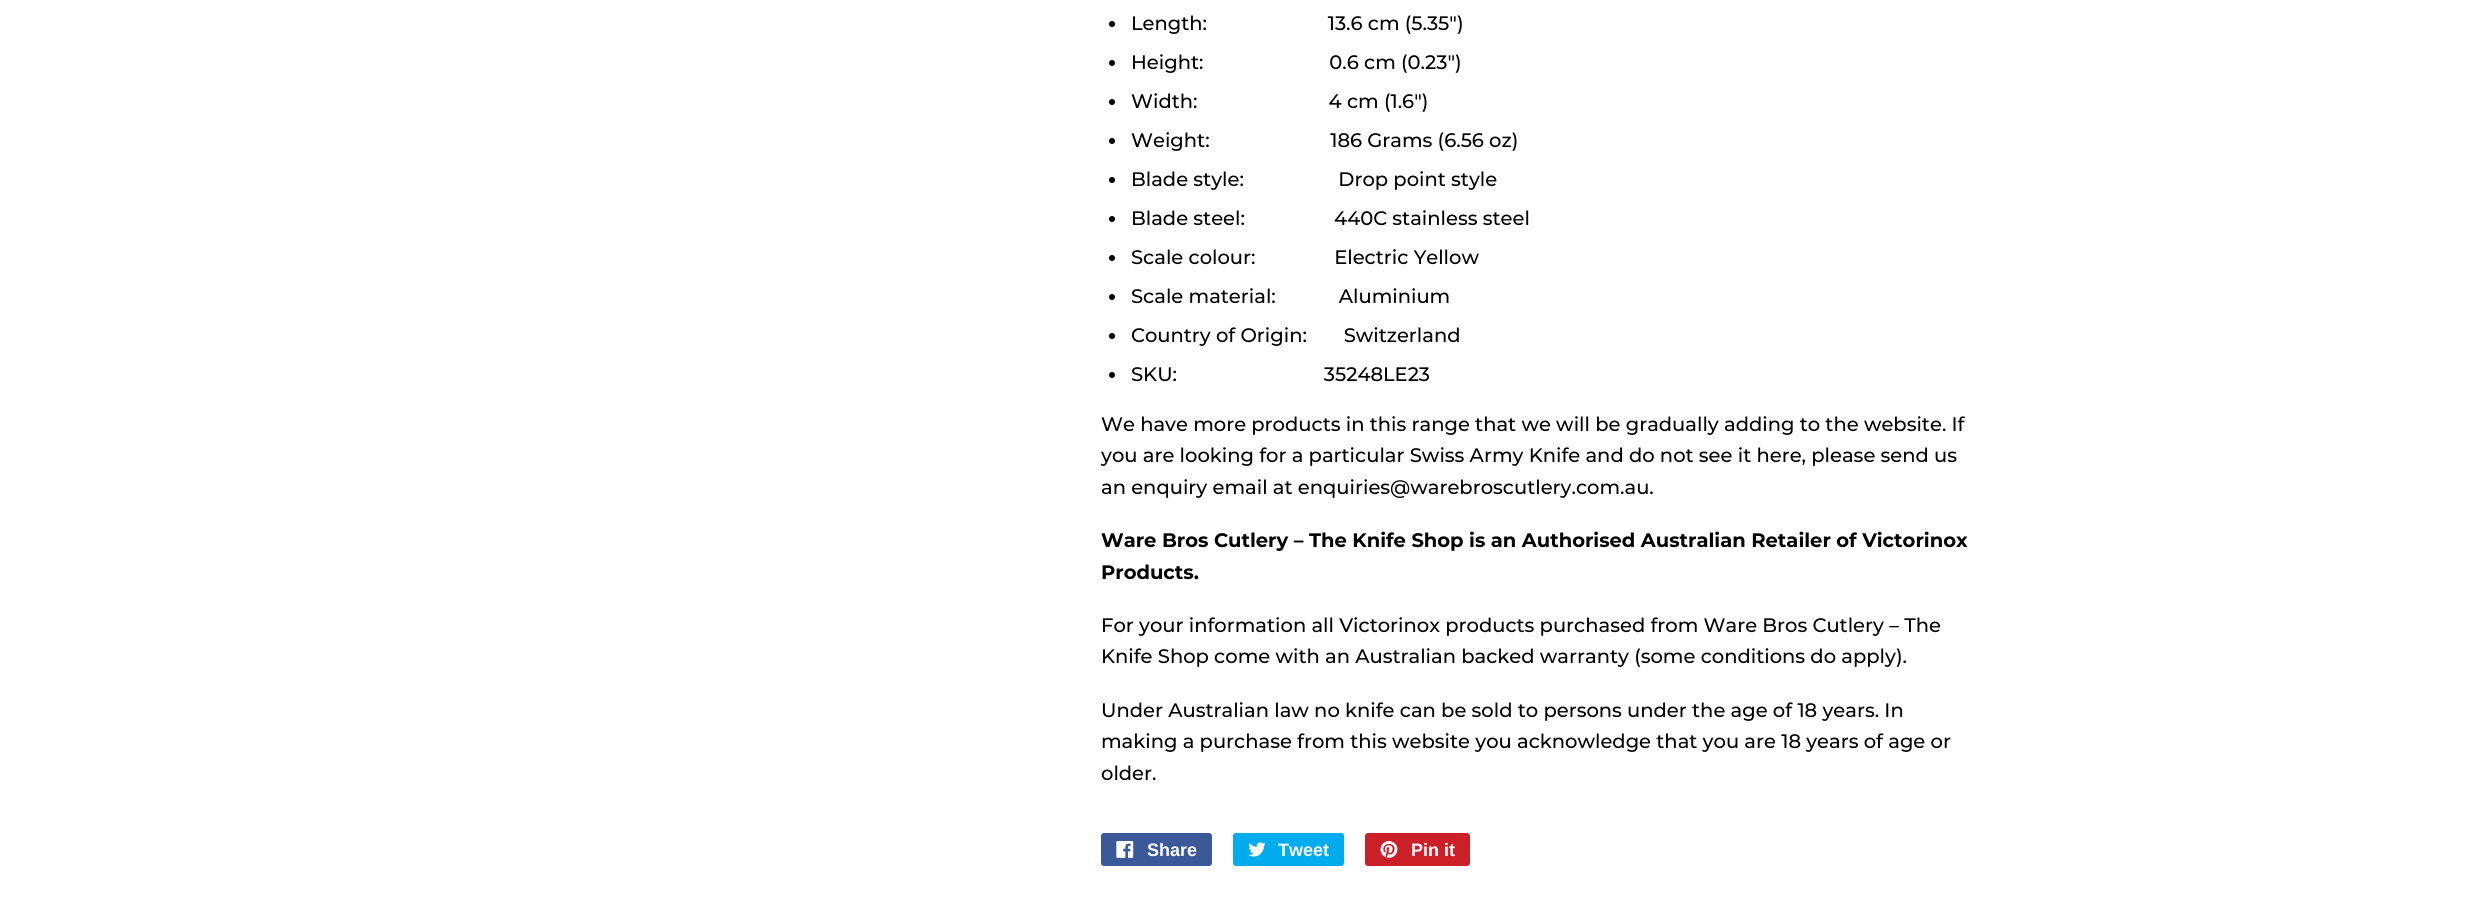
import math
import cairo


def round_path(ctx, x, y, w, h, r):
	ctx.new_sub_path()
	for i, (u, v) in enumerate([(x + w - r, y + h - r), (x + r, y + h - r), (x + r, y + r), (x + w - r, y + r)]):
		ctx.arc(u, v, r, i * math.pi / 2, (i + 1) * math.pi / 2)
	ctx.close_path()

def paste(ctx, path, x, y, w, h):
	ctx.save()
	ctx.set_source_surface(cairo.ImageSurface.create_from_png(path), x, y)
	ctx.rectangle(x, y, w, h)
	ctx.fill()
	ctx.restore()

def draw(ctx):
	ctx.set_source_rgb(1, 1, 1)
	ctx.paint()
	ctx.set_source_rgb(0, 0, 0)
	ctx.arc(1112, 24, 3, 0, 2 * math.pi)
	ctx.fill()
	ctx.select_font_face('Montserrat Medium')
	ctx.set_font_size(19.5)
	ctx.move_to(1131, 30)
	ctx.show_text('Length:                       13.6 cm (5.35")')
	ctx.new_path()
	ctx.arc(1112, 63, 3, 0, 2 * math.pi)
	ctx.fill()
	ctx.move_to(1131, 69)
	ctx.show_text('Height:                        0.6 cm (0.23")')
	ctx.new_path()
	ctx.arc(1112, 102, 3, 0, 2 * math.pi)
	ctx.fill()
	ctx.move_to(1131, 108)
	ctx.show_text('Width:                         4 cm (1.6")')
	ctx.new_path()
	ctx.arc(1112, 141, 3, 0, 2 * math.pi)
	ctx.fill()
	ctx.move_to(1131, 147)
	ctx.show_text('Weight:                       186 Grams (6.56 oz)')
	ctx.new_path()
	ctx.arc(1112, 180, 3, 0, 2 * math.pi)
	ctx.fill()
	ctx.move_to(1131, 186)
	ctx.show_text('Blade style:                  Drop point style')
	ctx.new_path()
	ctx.arc(1112, 219, 3, 0, 2 * math.pi)
	ctx.fill()
	ctx.move_to(1131, 225)
	ctx.show_text('Blade steel:                 440C stainless steel')
	ctx.new_path()
	ctx.arc(1112, 258, 3, 0, 2 * math.pi)
	ctx.fill()
	ctx.move_to(1131, 264)
	ctx.show_text('Scale colour:               Electric Yellow')
	ctx.new_path()
	ctx.arc(1112, 297, 3, 0, 2 * math.pi)
	ctx.fill()
	ctx.move_to(1131, 303)
	ctx.show_text('Scale material:            Aluminium')
	ctx.new_path()
	ctx.arc(1112, 336, 3, 0, 2 * math.pi)
	ctx.fill()
	ctx.move_to(1131, 342)
	ctx.show_text('Country of Origin:       Switzerland')
	ctx.new_path()
	ctx.arc(1112, 375, 3, 0, 2 * math.pi)
	ctx.fill()
	for x, y, s in [
		(1131, 381, 'SKU:                            35248LE23'),
		(1101, 431, 'We have more products in this range that we will be gradually adding to the website. If'),
		(1101, 462, 'you are looking for a particular Swiss Army Knife and do not see it here, please send us'),
		(1101, 494, 'an enquiry email at enquiries@warebroscutlery.com.au.'),
	]:
		ctx.move_to(x, y)
		ctx.show_text(s)
	ctx.select_font_face('Montserrat', cairo.FONT_SLANT_NORMAL, cairo.FONT_WEIGHT_BOLD)
	ctx.move_to(1101, 547)
	ctx.show_text('Ware Bros Cutlery – The Knife Shop is an Authorised Australian Retailer of Victorinox')
	ctx.move_to(1101, 579)
	ctx.show_text('Products.')
	ctx.select_font_face('Montserrat Medium')
	for x, y, s in [
		(1101, 632, 'For your information all Victorinox products purchased from Ware Bros Cutlery – The'),
		(1101, 663, 'Knife Shop come with an Australian backed warranty (some conditions do apply).'),
		(1101, 717, 'Under Australian law no knife can be sold to persons under the age of 18 years. In'),
		(1101, 748, 'making a purchase from this website you acknowledge that you are 18 years of age or'),
		(1101, 780, 'older.'),
	]:
		ctx.move_to(x, y)
		ctx.show_text(s)
	ctx.set_source_rgb(0.231, 0.349, 0.596)
	round_path(ctx, 1101, 833, 111, 33, 3)
	ctx.fill()
	paste(ctx, 'media/1.png', 1116, 841, 18, 17)
	ctx.select_font_face('Liberation Sans', cairo.FONT_SLANT_NORMAL, cairo.FONT_WEIGHT_BOLD)
	ctx.set_font_size(18)
	ctx.set_source_rgb(1, 1, 1)
	ctx.move_to(1147, 856)
	ctx.show_text('Share')
	ctx.set_source_rgb(0, 0.675, 0.929)
	round_path(ctx, 1233, 833, 111, 33, 3)
	ctx.fill()
	paste(ctx, 'media/2.png', 1248, 842, 18, 15)
	ctx.set_source_rgb(1, 1, 1)
	ctx.move_to(1278, 856)
	ctx.show_text('Tweet')
	ctx.set_source_rgb(0.796, 0.125, 0.153)
	round_path(ctx, 1365, 833, 105, 33, 3)
	ctx.fill()
	paste(ctx, 'media/3.png', 1380, 841, 18, 17)
	ctx.set_source_rgb(1, 1, 1)
	ctx.move_to(1411, 856)
	ctx.show_text('Pin it')


surface = cairo.ImageSurface(cairo.FORMAT_RGB24, 2466, 900)
ctx = cairo.Context(surface)
options = cairo.FontOptions()
options.set_hint_metrics(cairo.HINT_METRICS_OFF)
options.set_hint_style(cairo.HINT_STYLE_NONE)
ctx.set_font_options(options)
ctx.set_miter_limit(4)
draw(ctx)
surface.write_to_png('image.png')
